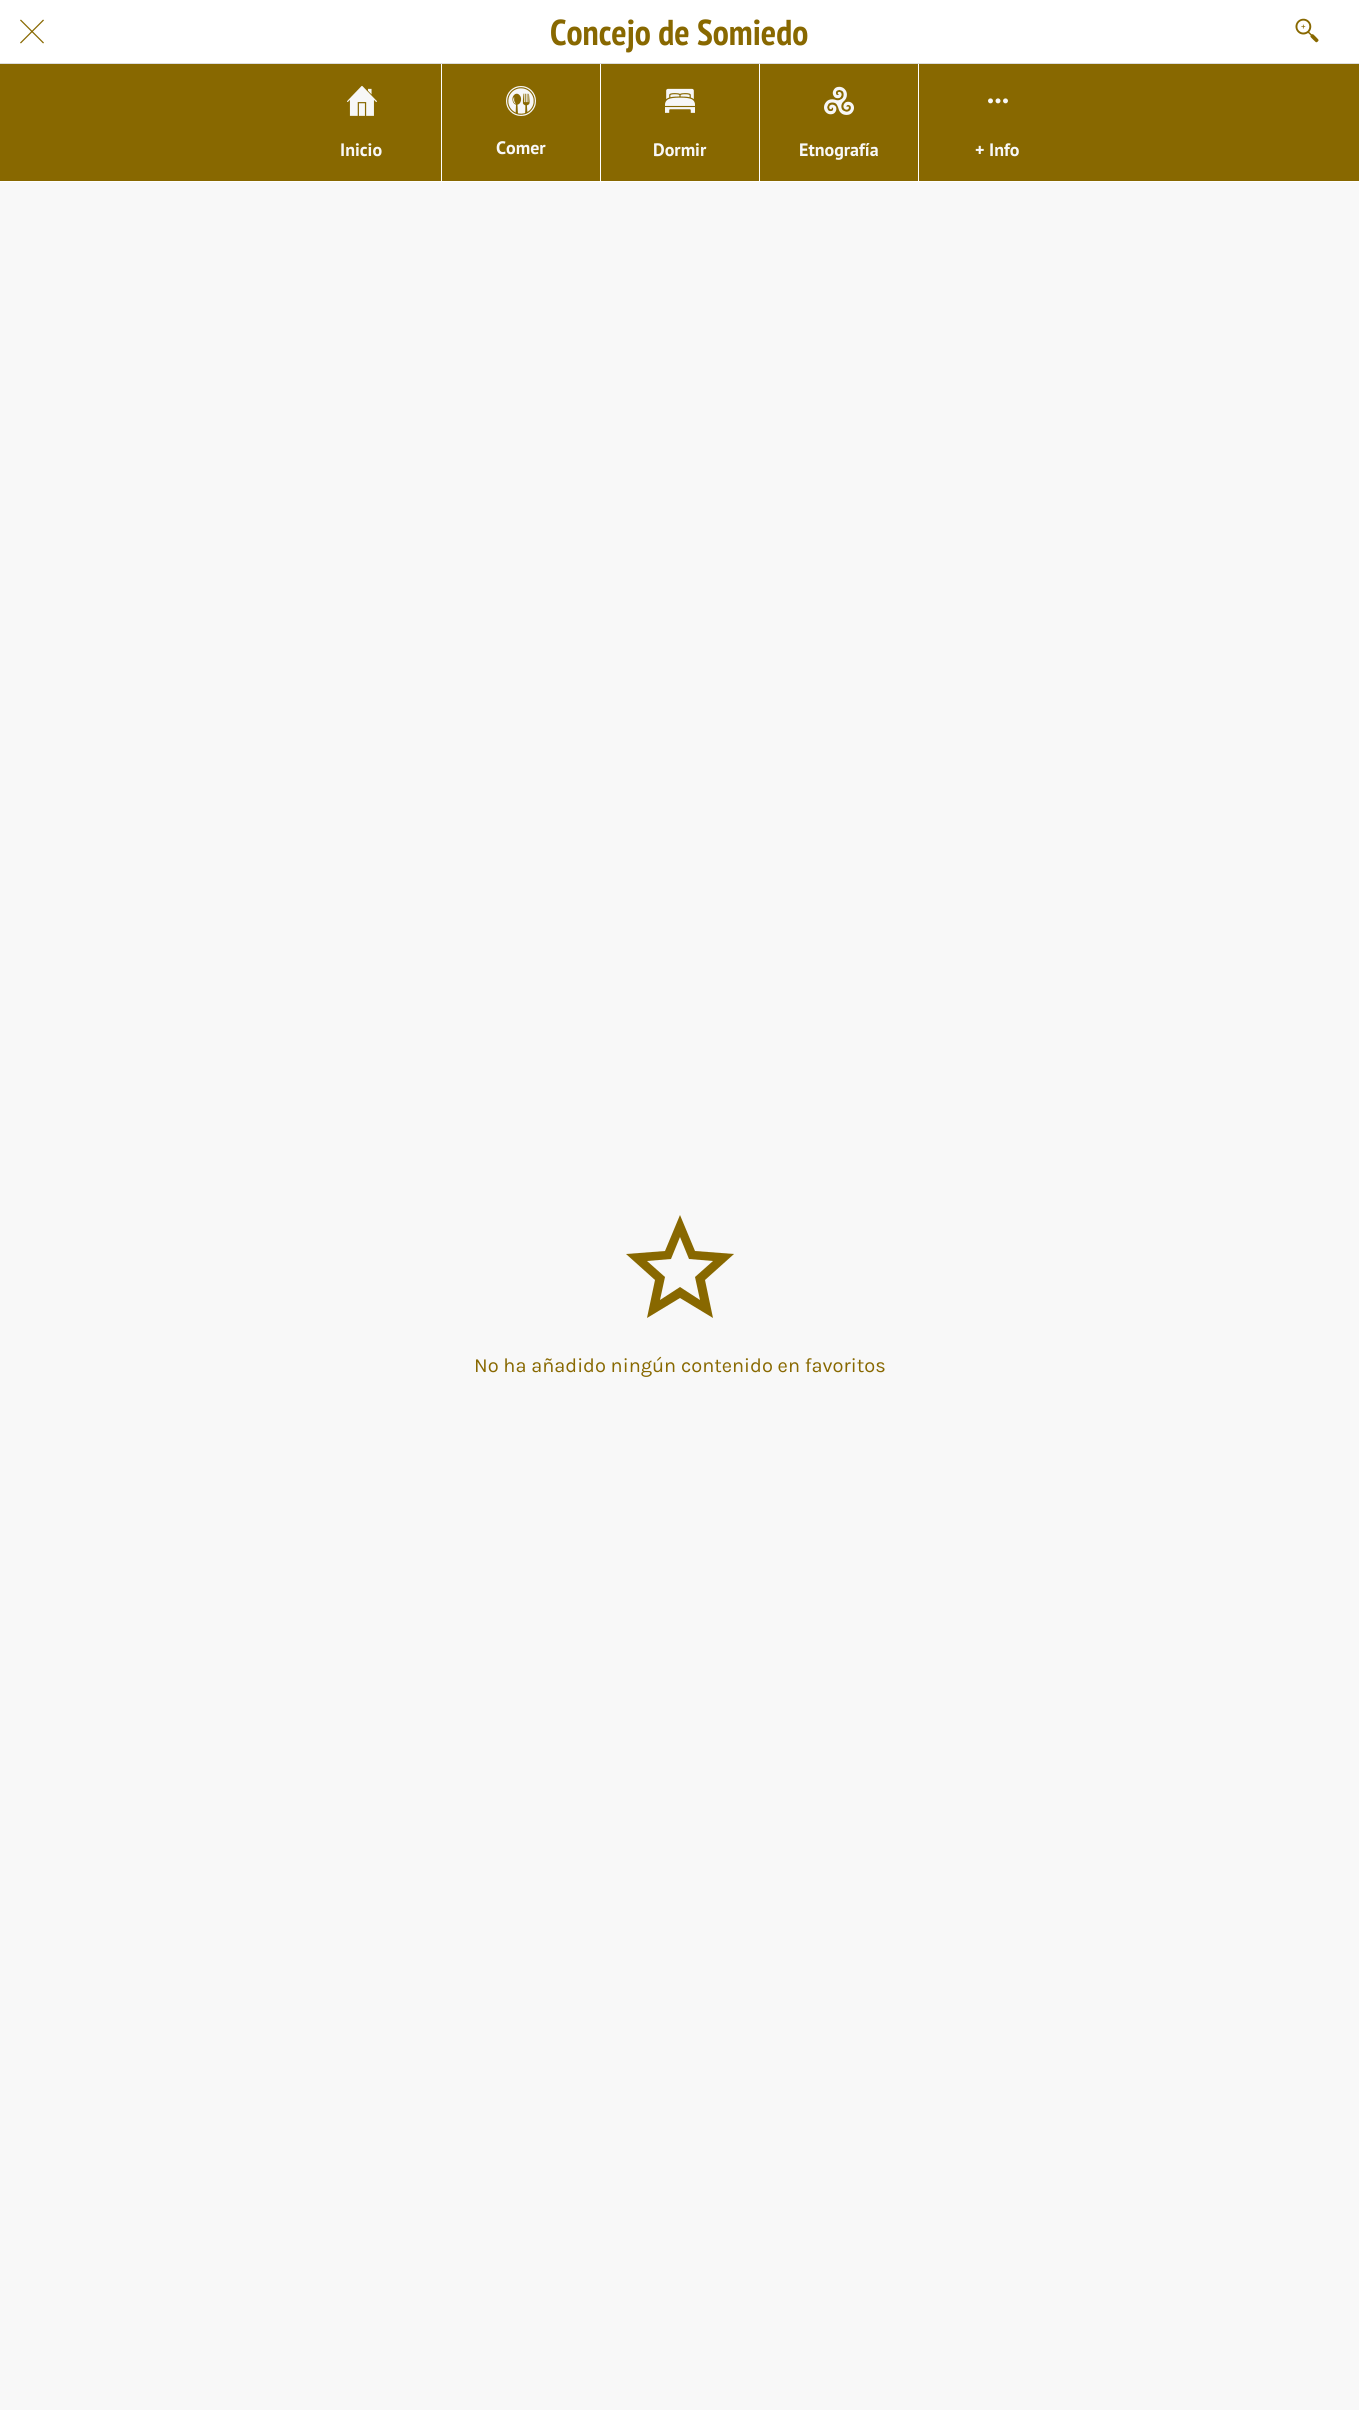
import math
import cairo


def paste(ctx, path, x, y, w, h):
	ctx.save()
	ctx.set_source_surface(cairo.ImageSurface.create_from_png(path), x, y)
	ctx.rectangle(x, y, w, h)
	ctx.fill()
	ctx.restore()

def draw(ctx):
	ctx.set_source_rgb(1, 1, 1)
	ctx.paint()
	ctx.set_source_rgb(0.867, 0.867, 0.867)
	ctx.rectangle(0, 63, 1359, 1)
	ctx.fill()
	paste(ctx, 'media/1.png', 20, 19, 24, 25)
	ctx.select_font_face('PT Sans Narrow', cairo.FONT_SLANT_NORMAL, cairo.FONT_WEIGHT_BOLD)
	ctx.set_font_size(36)
	ctx.set_source_rgb(0.533, 0.408, 0)
	ctx.move_to(550, 45)
	ctx.show_text('Concejo de Somiedo')
	paste(ctx, 'media/2.png', 1295, 18, 24, 25)
	ctx.rectangle(0, 64, 1359, 117)
	ctx.fill()
	ctx.set_source_rgb(1, 1, 1)
	ctx.rectangle(441, 64, 1, 117)
	ctx.fill()
	paste(ctx, 'media/3.png', 347, 85, 30, 31)
	ctx.select_font_face('PT Sans', cairo.FONT_SLANT_NORMAL, cairo.FONT_WEIGHT_BOLD)
	ctx.set_font_size(18)
	ctx.set_source_rgb(0.969, 0.969, 0.969)
	ctx.move_to(340, 156)
	ctx.show_text('Inicio')
	ctx.set_source_rgb(1, 1, 1)
	ctx.rectangle(600, 64, 1, 117)
	ctx.fill()
	paste(ctx, 'media/4.png', 506, 86, 30, 30)
	ctx.set_source_rgb(0.969, 0.969, 0.969)
	ctx.move_to(496, 154)
	ctx.show_text('Comer')
	ctx.set_source_rgb(1, 1, 1)
	ctx.rectangle(759, 64, 1, 117)
	ctx.fill()
	paste(ctx, 'media/5.png', 665, 88, 30, 25)
	ctx.set_source_rgb(0.969, 0.969, 0.969)
	ctx.move_to(653, 156)
	ctx.show_text('Dormir')
	ctx.set_source_rgb(1, 1, 1)
	ctx.rectangle(918, 64, 1, 117)
	ctx.fill()
	paste(ctx, 'media/6.png', 824, 86, 30, 29)
	ctx.set_source_rgb(0.969, 0.969, 0.969)
	ctx.move_to(799, 156)
	ctx.show_text('Etnografía')
	paste(ctx, 'media/7.png', 988, 98, 20, 6)
	ctx.move_to(975, 156)
	ctx.show_text('+ Info')
	ctx.rectangle(0, 182, 1359, 2228)
	ctx.fill()
	ctx.set_source_rgb(0.533, 0.408, 0)
	ctx.new_path()
	ctx.move_to(734, 1254)
	ctx.line_to(695, 1251)
	ctx.line_to(680, 1215)
	ctx.line_to(665, 1251)
	ctx.line_to(626, 1254)
	ctx.line_to(655, 1280)
	ctx.line_to(647, 1318)
	ctx.line_to(680, 1298)
	ctx.line_to(713, 1318)
	ctx.line_to(705, 1280)
	ctx.close_path()
	ctx.move_to(680, 1287)
	ctx.line_to(660, 1300)
	ctx.line_to(665, 1277)
	ctx.line_to(647, 1261)
	ctx.line_to(671, 1259)
	ctx.line_to(680, 1237)
	ctx.line_to(689, 1259)
	ctx.line_to(713, 1261)
	ctx.line_to(695, 1277)
	ctx.line_to(700, 1300)
	ctx.close_path()
	ctx.fill()
	ctx.select_font_face('Karla')
	ctx.set_font_size(20)
	ctx.move_to(474, 1372)
	ctx.show_text('No ha añadido ningún contenido en favoritos')


surface = cairo.ImageSurface(cairo.FORMAT_RGB24, 1359, 2410)
ctx = cairo.Context(surface)
options = cairo.FontOptions()
options.set_hint_metrics(cairo.HINT_METRICS_OFF)
options.set_hint_style(cairo.HINT_STYLE_NONE)
ctx.set_font_options(options)
ctx.set_miter_limit(4)
draw(ctx)
surface.write_to_png('image.png')
